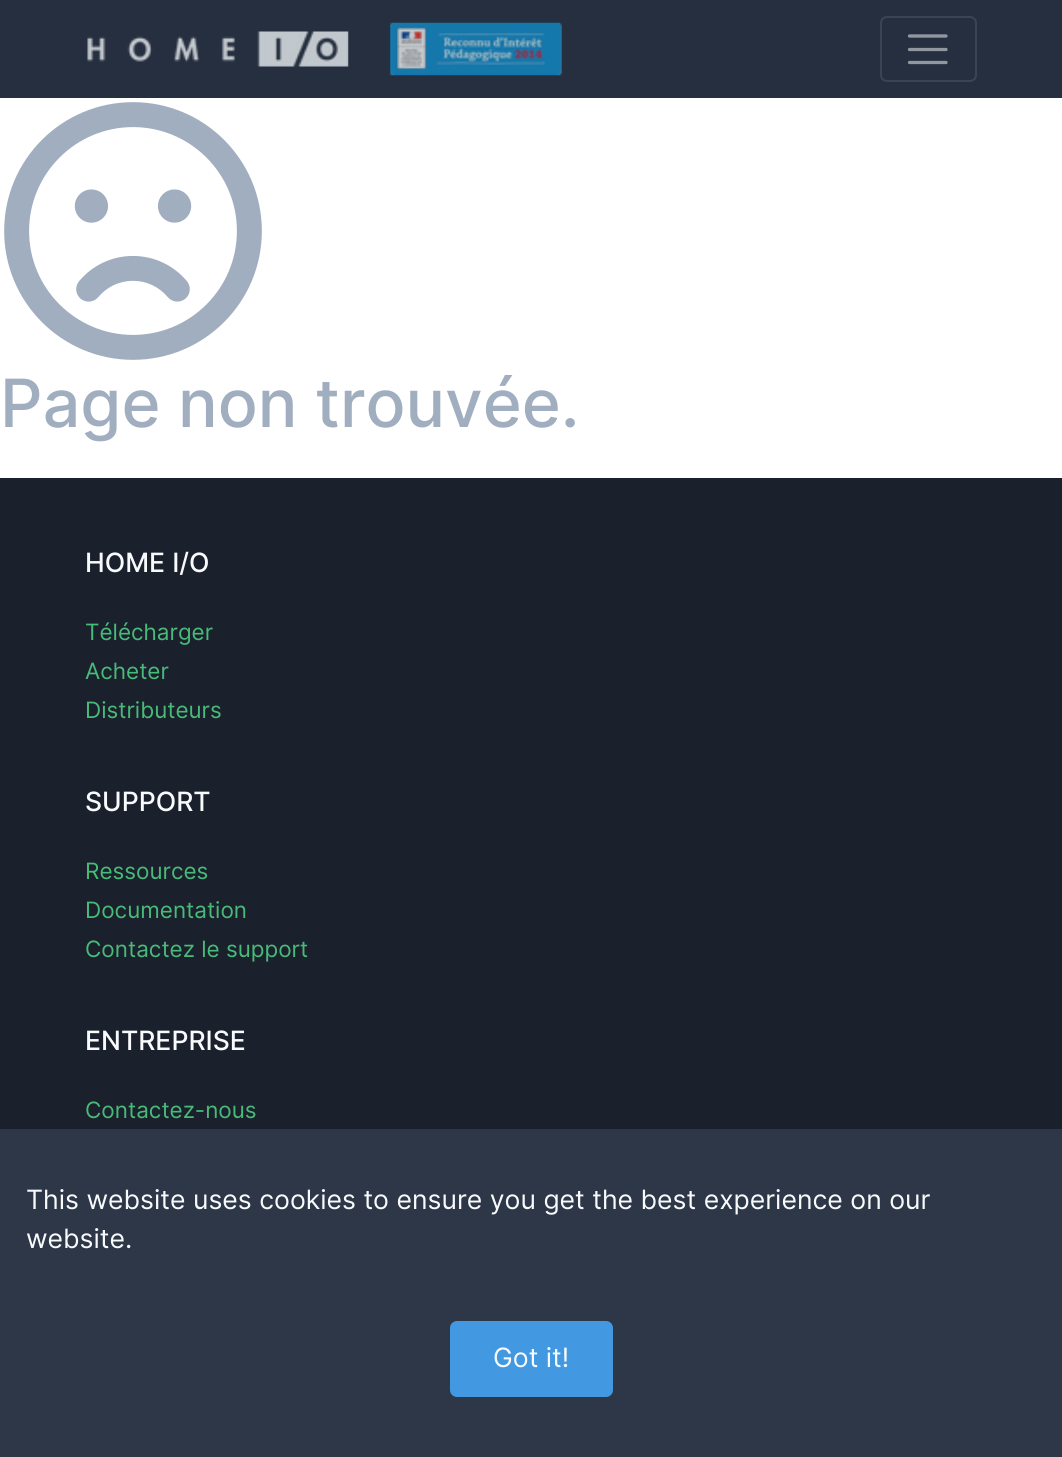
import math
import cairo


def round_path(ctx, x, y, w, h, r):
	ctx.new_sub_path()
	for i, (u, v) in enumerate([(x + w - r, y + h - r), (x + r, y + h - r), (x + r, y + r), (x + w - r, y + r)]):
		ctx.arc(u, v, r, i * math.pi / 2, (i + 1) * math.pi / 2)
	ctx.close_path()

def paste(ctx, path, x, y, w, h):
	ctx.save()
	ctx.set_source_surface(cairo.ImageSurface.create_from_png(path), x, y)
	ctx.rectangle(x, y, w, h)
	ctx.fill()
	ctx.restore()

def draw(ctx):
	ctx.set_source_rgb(1, 1, 1)
	ctx.paint()
	ctx.set_source_rgb(0.145, 0.184, 0.247)
	ctx.rectangle(0, 0, 1062, 98)
	ctx.fill()
	paste(ctx, 'media/1.png', 87, 31, 262, 36)
	paste(ctx, 'media/2.png', 390, 22, 172, 54)
	round_path(ctx, 881, 17, 95, 64, 6)
	ctx.set_source_rgb(0.231, 0.267, 0.322)
	ctx.stroke()
	ctx.new_path()
	ctx.move_to(909.5, 36)
	ctx.line_to(946, 36)
	ctx.move_to(909.5, 49.5)
	ctx.line_to(946, 49.5)
	ctx.move_to(909.5, 62.5)
	ctx.line_to(946, 62.5)
	ctx.set_source_rgb(0.573, 0.592, 0.624)
	ctx.set_line_width(3.3)
	ctx.set_line_cap(cairo.LINE_CAP_ROUND)
	ctx.stroke()
	paste(ctx, 'media/3.png', 4, 102, 258, 258)
	ctx.select_font_face('Inter Medium')
	ctx.set_font_size(66.5)
	ctx.set_source_rgb(0.627, 0.682, 0.753)
	ctx.move_to(0, 427)
	ctx.show_text('Page non trouvée.')
	ctx.set_source_rgb(0.102, 0.125, 0.173)
	ctx.rectangle(0, 478, 1062, 651)
	ctx.fill()
	ctx.set_font_size(26.6)
	ctx.set_source_rgb(0.969, 0.98, 0.988)
	ctx.move_to(85, 572)
	ctx.show_text('HOME I/O')
	ctx.select_font_face('Inter')
	ctx.set_font_size(22.5)
	ctx.set_source_rgb(0.282, 0.733, 0.471)
	for x, y, s in [
		(85, 640, 'Télécharger'),
		(85, 679, 'Acheter'),
		(85, 718, 'Distributeurs'),
	]:
		ctx.move_to(x, y)
		ctx.show_text(s)
	ctx.select_font_face('Inter Medium')
	ctx.set_font_size(26.6)
	ctx.set_source_rgb(0.969, 0.98, 0.988)
	ctx.move_to(85, 811)
	ctx.show_text('SUPPORT')
	ctx.select_font_face('Inter')
	ctx.set_font_size(22.5)
	ctx.set_source_rgb(0.282, 0.733, 0.471)
	for x, y, s in [
		(85, 879, 'Ressources'),
		(85, 918, 'Documentation'),
		(85, 957, 'Contactez le support'),
	]:
		ctx.move_to(x, y)
		ctx.show_text(s)
	ctx.select_font_face('Inter Medium')
	ctx.set_font_size(26.6)
	ctx.set_source_rgb(0.969, 0.98, 0.988)
	ctx.move_to(85, 1050)
	ctx.show_text('ENTREPRISE')
	ctx.select_font_face('Inter')
	ctx.set_font_size(22.5)
	ctx.set_source_rgb(0.282, 0.733, 0.471)
	ctx.move_to(85, 1118)
	ctx.show_text('Contactez-nous')
	ctx.set_source_rgb(0.176, 0.216, 0.282)
	ctx.rectangle(0, 1129, 1062, 328)
	ctx.fill()
	ctx.set_font_size(26.6)
	ctx.set_source_rgb(0.969, 0.98, 0.988)
	ctx.move_to(26, 1209)
	ctx.show_text('This website uses cookies to ensure you get the best experience on our')
	ctx.move_to(26, 1248)
	ctx.show_text('website.')
	ctx.set_source_rgb(0.259, 0.6, 0.882)
	round_path(ctx, 450, 1321, 163, 76, 7)
	ctx.fill()
	ctx.set_source_rgb(0.969, 0.98, 0.988)
	ctx.move_to(493, 1367)
	ctx.show_text('Got it!')


surface = cairo.ImageSurface(cairo.FORMAT_RGB24, 1062, 1457)
ctx = cairo.Context(surface)
options = cairo.FontOptions()
options.set_hint_metrics(cairo.HINT_METRICS_OFF)
options.set_hint_style(cairo.HINT_STYLE_NONE)
ctx.set_font_options(options)
ctx.set_miter_limit(4)
draw(ctx)
surface.write_to_png('image.png')
